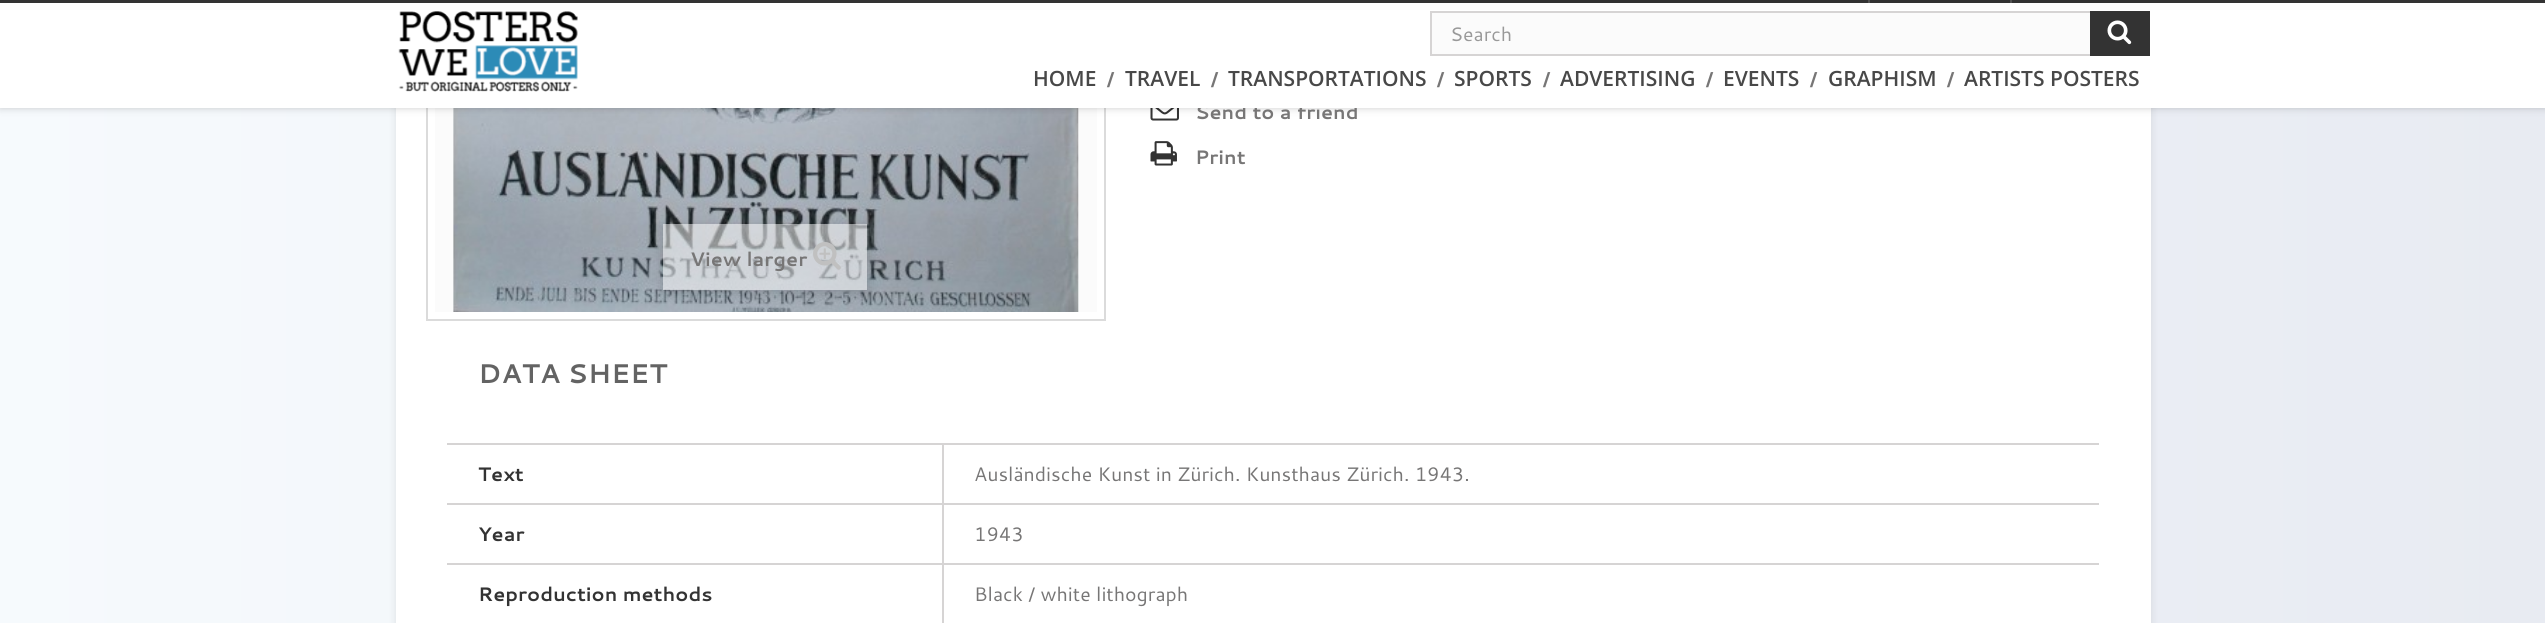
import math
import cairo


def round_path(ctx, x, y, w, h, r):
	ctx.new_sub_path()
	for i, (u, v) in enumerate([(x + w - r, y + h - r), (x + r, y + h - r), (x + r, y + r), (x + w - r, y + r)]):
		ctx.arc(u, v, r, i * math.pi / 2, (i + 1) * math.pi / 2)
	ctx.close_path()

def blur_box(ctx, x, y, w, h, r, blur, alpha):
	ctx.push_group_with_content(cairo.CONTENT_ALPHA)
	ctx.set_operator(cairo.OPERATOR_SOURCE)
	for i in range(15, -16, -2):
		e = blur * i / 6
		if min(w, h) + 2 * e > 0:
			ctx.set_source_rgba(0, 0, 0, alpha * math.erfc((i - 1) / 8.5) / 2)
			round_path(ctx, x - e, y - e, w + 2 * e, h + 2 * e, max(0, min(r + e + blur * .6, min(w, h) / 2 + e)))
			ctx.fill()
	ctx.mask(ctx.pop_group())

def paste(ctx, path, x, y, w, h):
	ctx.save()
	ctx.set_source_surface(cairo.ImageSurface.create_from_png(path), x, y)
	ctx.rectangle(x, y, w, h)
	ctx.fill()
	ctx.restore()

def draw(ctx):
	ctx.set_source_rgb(1, 1, 1)
	ctx.paint()
	gradient = cairo.LinearGradient(0, 398, 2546, 398)
	gradient.add_color_stop_rgba(0, 0.965, 0.98, 0.992, 1)
	gradient.add_color_stop_rgba(1, 0.91, 0.922, 0.949, 1)
	ctx.set_source(gradient)
	ctx.rectangle(0, 108, 2545, 515)
	ctx.fill()
	ctx.set_source_rgb(0, 0, 0)
	blur_box(ctx, 396, -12, 1755, 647, 0, 4, 0.1)
	ctx.set_source_rgb(1, 1, 1)
	ctx.rectangle(396, 108, 1755, 515)
	ctx.fill()
	paste(ctx, 'media/3.png', 1150, 108, 29, 13)
	ctx.rectangle(427, -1, 678, 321)
	ctx.set_source_rgb(0.859, 0.859, 0.859)
	ctx.stroke()
	ctx.set_source_rgb(0.984, 0.984, 0.984)
	ctx.rectangle(435, 108, 662, 204)
	ctx.fill()
	paste(ctx, 'media/5.png', 453, 108, 626, 204)
	ctx.set_source_rgb(0, 0, 0)
	blur_box(ctx, 0, 0, 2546, 108, 0, 4, 0.2)
	ctx.select_font_face('Cantarell', cairo.FONT_SLANT_NORMAL, cairo.FONT_WEIGHT_BOLD)
	ctx.set_font_size(19.5)
	ctx.set_source_rgb(0.467, 0.463, 0.463)
	ctx.move_to(1195, 119)
	ctx.show_text('Send to a friend')
	ctx.set_source_rgb(1, 1, 1)
	ctx.rectangle(0, 3, 2545, 105)
	ctx.fill()
	ctx.set_source_rgb(0.2, 0.2, 0.2)
	ctx.rectangle(0, 0, 2545, 3)
	ctx.fill()
	ctx.set_source_rgb(0.318, 0.318, 0.318)
	ctx.rectangle(1868, 0, 2, 3)
	ctx.rectangle(2010, 0, 2, 3)
	ctx.fill()
	paste(ctx, 'media/1.png', 398, 11, 180, 81)
	ctx.set_source_rgb(0.984, 0.984, 0.984)
	ctx.rectangle(1432, 13, 658, 41)
	ctx.fill()
	ctx.rectangle(1431, 12, 718, 43)
	ctx.set_source_rgb(0.839, 0.831, 0.831)
	ctx.stroke()
	ctx.select_font_face('Cantarell')
	ctx.set_source_rgb(0.6, 0.6, 0.6)
	ctx.move_to(1450, 41)
	ctx.show_text('Search')
	ctx.set_source_rgb(0.2, 0.2, 0.2)
	ctx.rectangle(2090, 11, 60, 45)
	ctx.fill()
	paste(ctx, 'media/2.png', 2107, 20, 25, 25)
	ctx.select_font_face('Open Sans SemiBold')
	ctx.set_font_size(21)
	ctx.set_source_rgb(0.282, 0.282, 0.282)
	ctx.move_to(1033, 86)
	ctx.show_text('HOME')
	ctx.select_font_face('Cantarell', cairo.FONT_SLANT_NORMAL, cairo.FONT_WEIGHT_BOLD)
	ctx.set_font_size(19.5)
	ctx.set_source_rgb(0.467, 0.463, 0.463)
	ctx.move_to(1107, 86)
	ctx.show_text('/')
	ctx.select_font_face('Open Sans SemiBold')
	ctx.set_font_size(21)
	ctx.set_source_rgb(0.282, 0.282, 0.282)
	ctx.move_to(1125, 86)
	ctx.show_text('TRAVEL')
	ctx.select_font_face('Cantarell', cairo.FONT_SLANT_NORMAL, cairo.FONT_WEIGHT_BOLD)
	ctx.set_font_size(19.5)
	ctx.set_source_rgb(0.467, 0.463, 0.463)
	ctx.move_to(1211, 86)
	ctx.show_text('/')
	ctx.select_font_face('Open Sans SemiBold')
	ctx.set_font_size(21)
	ctx.set_source_rgb(0.282, 0.282, 0.282)
	ctx.move_to(1228, 86)
	ctx.show_text('TRANSPORTATIONS')
	ctx.select_font_face('Cantarell', cairo.FONT_SLANT_NORMAL, cairo.FONT_WEIGHT_BOLD)
	ctx.set_font_size(19.5)
	ctx.set_source_rgb(0.467, 0.463, 0.463)
	ctx.move_to(1437, 86)
	ctx.show_text('/')
	ctx.select_font_face('Open Sans SemiBold')
	ctx.set_font_size(21)
	ctx.set_source_rgb(0.282, 0.282, 0.282)
	ctx.move_to(1454, 86)
	ctx.show_text('SPORTS')
	ctx.select_font_face('Cantarell', cairo.FONT_SLANT_NORMAL, cairo.FONT_WEIGHT_BOLD)
	ctx.set_font_size(19.5)
	ctx.set_source_rgb(0.467, 0.463, 0.463)
	ctx.move_to(1543, 86)
	ctx.show_text('/')
	ctx.select_font_face('Open Sans SemiBold')
	ctx.set_font_size(21)
	ctx.set_source_rgb(0.282, 0.282, 0.282)
	ctx.move_to(1560, 86)
	ctx.show_text('ADVERTISING')
	ctx.select_font_face('Cantarell', cairo.FONT_SLANT_NORMAL, cairo.FONT_WEIGHT_BOLD)
	ctx.set_font_size(19.5)
	ctx.set_source_rgb(0.467, 0.463, 0.463)
	ctx.move_to(1706, 86)
	ctx.show_text('/')
	ctx.select_font_face('Open Sans SemiBold')
	ctx.set_font_size(21)
	ctx.set_source_rgb(0.282, 0.282, 0.282)
	ctx.move_to(1723, 86)
	ctx.show_text('EVENTS')
	ctx.select_font_face('Cantarell', cairo.FONT_SLANT_NORMAL, cairo.FONT_WEIGHT_BOLD)
	ctx.set_font_size(19.5)
	ctx.set_source_rgb(0.467, 0.463, 0.463)
	ctx.move_to(1810, 86)
	ctx.show_text('/')
	ctx.select_font_face('Open Sans SemiBold')
	ctx.set_font_size(21)
	ctx.set_source_rgb(0.282, 0.282, 0.282)
	ctx.move_to(1828, 86)
	ctx.show_text('GRAPHISM')
	ctx.select_font_face('Cantarell', cairo.FONT_SLANT_NORMAL, cairo.FONT_WEIGHT_BOLD)
	ctx.set_font_size(19.5)
	ctx.set_source_rgb(0.467, 0.463, 0.463)
	ctx.move_to(1947, 86)
	ctx.show_text('/')
	ctx.select_font_face('Open Sans SemiBold')
	ctx.set_font_size(21)
	ctx.set_source_rgb(0.282, 0.282, 0.282)
	ctx.move_to(1964, 86)
	ctx.show_text('ARTISTS POSTERS')
	paste(ctx, 'media/4.png', 1150, 141, 27, 25)
	ctx.select_font_face('Cantarell', cairo.FONT_SLANT_NORMAL, cairo.FONT_WEIGHT_BOLD)
	ctx.set_font_size(19.5)
	ctx.set_source_rgb(0.467, 0.463, 0.463)
	ctx.move_to(1195, 164)
	ctx.show_text('Print')
	ctx.save()
	ctx.set_fill_rule(cairo.FILL_RULE_EVEN_ODD)
	ctx.new_path()
	ctx.move_to(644, 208)
	ctx.line_to(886, 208)
	ctx.line_to(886, 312)
	ctx.line_to(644, 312)
	ctx.close_path()
	ctx.move_to(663, 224)
	ctx.line_to(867, 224)
	ctx.line_to(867, 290)
	ctx.line_to(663, 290)
	ctx.close_path()
	ctx.clip()
	ctx.set_source_rgb(0, 0, 0)
	blur_box(ctx, 663, 227, 204, 66, 0, 6, 0.16)
	ctx.restore()
	ctx.set_source_rgba(1, 1, 1, 0.5)
	ctx.rectangle(663, 224, 204, 66)
	ctx.fill()
	ctx.set_source_rgb(0.467, 0.463, 0.463)
	ctx.move_to(690, 266)
	ctx.show_text('View larger')
	paste(ctx, 'media/6.png', 813, 242, 28, 28)
	ctx.set_font_size(27)
	ctx.set_source_rgb(0.388, 0.388, 0.388)
	ctx.move_to(478, 383)
	ctx.show_text('DATA SHEET')
	ctx.set_source_rgb(0.839, 0.831, 0.831)
	ctx.rectangle(447, 443, 1652, 2)
	ctx.fill()
	ctx.set_font_size(19.5)
	ctx.set_source_rgb(0.2, 0.2, 0.2)
	ctx.move_to(478, 481)
	ctx.show_text('Text')
	ctx.select_font_face('Cantarell')
	ctx.set_source_rgb(0.467, 0.463, 0.463)
	ctx.move_to(974, 481)
	ctx.show_text('Ausländische Kunst in Zürich. Kunsthaus Zürich. 1943.')
	ctx.set_source_rgb(0.839, 0.831, 0.831)
	ctx.rectangle(447, 503, 1652, 2)
	ctx.fill()
	ctx.select_font_face('Cantarell', cairo.FONT_SLANT_NORMAL, cairo.FONT_WEIGHT_BOLD)
	ctx.set_source_rgb(0.2, 0.2, 0.2)
	ctx.move_to(478, 541)
	ctx.show_text('Year')
	ctx.select_font_face('Cantarell')
	ctx.set_source_rgb(0.467, 0.463, 0.463)
	ctx.move_to(974, 541)
	ctx.show_text('1943')
	ctx.set_source_rgb(0.839, 0.831, 0.831)
	ctx.rectangle(447, 563, 1652, 2)
	ctx.fill()
	ctx.rectangle(942, 443, 2, 180)
	ctx.fill()
	ctx.select_font_face('Cantarell', cairo.FONT_SLANT_NORMAL, cairo.FONT_WEIGHT_BOLD)
	ctx.set_source_rgb(0.2, 0.2, 0.2)
	ctx.move_to(478, 601)
	ctx.show_text('Reproduction methods')
	ctx.select_font_face('Cantarell')
	ctx.set_source_rgb(0.467, 0.463, 0.463)
	ctx.move_to(974, 601)
	ctx.show_text('Black / white lithograph')


surface = cairo.ImageSurface(cairo.FORMAT_RGB24, 2545, 623)
ctx = cairo.Context(surface)
options = cairo.FontOptions()
options.set_hint_metrics(cairo.HINT_METRICS_OFF)
options.set_hint_style(cairo.HINT_STYLE_NONE)
ctx.set_font_options(options)
ctx.set_miter_limit(4)
draw(ctx)
surface.write_to_png('image.png')
